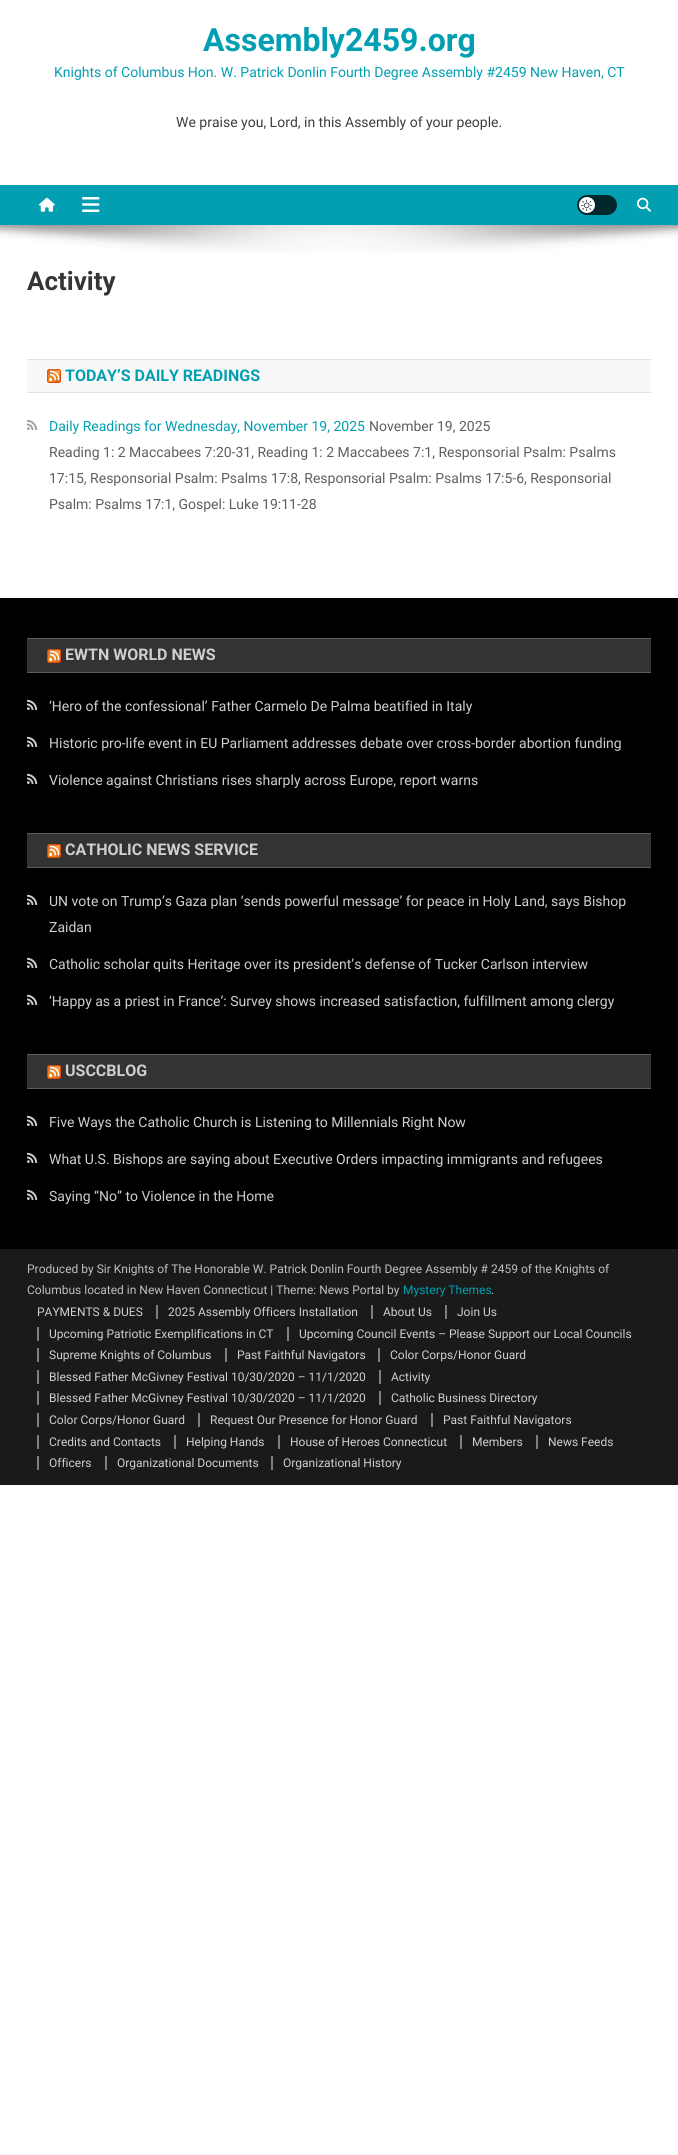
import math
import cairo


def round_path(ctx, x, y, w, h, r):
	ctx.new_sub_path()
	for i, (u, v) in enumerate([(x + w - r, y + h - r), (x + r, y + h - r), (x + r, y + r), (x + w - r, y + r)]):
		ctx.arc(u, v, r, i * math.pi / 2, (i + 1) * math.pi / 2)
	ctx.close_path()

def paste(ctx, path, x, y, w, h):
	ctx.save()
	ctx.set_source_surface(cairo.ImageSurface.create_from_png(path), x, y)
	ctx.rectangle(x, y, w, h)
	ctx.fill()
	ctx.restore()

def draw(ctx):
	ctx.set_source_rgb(1, 1, 1)
	ctx.paint()
	ctx.select_font_face('Roboto', cairo.FONT_SLANT_NORMAL, cairo.FONT_WEIGHT_BOLD)
	ctx.set_font_size(32)
	ctx.set_source_rgb(0.008, 0.624, 0.698)
	ctx.move_to(203, 51)
	ctx.show_text('Assembly2459.org')
	ctx.select_font_face('Roboto')
	ctx.set_font_size(14)
	ctx.move_to(54, 77)
	ctx.show_text('Knights of Columbus Hon. W. Patrick Donlin Fourth Degree Assembly #2459 New Haven, CT')
	ctx.set_source_rgb(0.239, 0.239, 0.239)
	ctx.move_to(176, 127)
	ctx.show_text('We praise you, Lord, in this Assembly of your people.')
	ctx.set_source_rgb(0.008, 0.624, 0.698)
	ctx.rectangle(0, 185, 678, 40)
	ctx.fill()
	paste(ctx, 'media/1.png', 39, 197, 16, 15)
	paste(ctx, 'media/2.png', 82, 197, 18, 15)
	ctx.set_source_rgb(0.004, 0.157, 0.176)
	round_path(ctx, 577, 195, 40, 20, 10)
	ctx.fill()
	ctx.set_source_rgb(1, 1, 1)
	ctx.arc(587, 205, 8, 0, 2 * math.pi)
	ctx.fill()
	paste(ctx, 'media/3.png', 581, 199, 12, 12)
	paste(ctx, 'media/4.png', 637, 197, 14, 15)
	paste(ctx, 'media/5.png', 0, 225, 678, 28)
	ctx.select_font_face('Roboto', cairo.FONT_SLANT_NORMAL, cairo.FONT_WEIGHT_BOLD)
	ctx.set_font_size(26)
	ctx.set_source_rgb(0.208, 0.208, 0.208)
	ctx.move_to(27, 290)
	ctx.show_text('Activity')
	ctx.set_source_rgb(0.969, 0.969, 0.969)
	ctx.rectangle(27, 360, 624, 32)
	ctx.fill()
	ctx.set_source_rgb(0.882, 0.882, 0.882)
	ctx.rectangle(27, 359, 624, 1)
	ctx.rectangle(27, 392, 624, 1)
	ctx.fill()
	paste(ctx, 'media/6.png', 47, 369, 14, 14)
	ctx.set_font_size(16)
	ctx.set_source_rgb(0.008, 0.624, 0.698)
	ctx.move_to(65, 381)
	ctx.show_text('TODAY’S DAILY READINGS')
	paste(ctx, 'media/7.png', 27, 419, 11, 11)
	ctx.select_font_face('Roboto')
	ctx.set_font_size(14)
	ctx.move_to(49, 431)
	ctx.show_text('Daily Readings for Wednesday, November 19, 2025')
	ctx.set_source_rgb(0.373, 0.373, 0.373)
	for x, y, s in [
		(369, 431, 'November 19, 2025'),
		(49, 457, 'Reading 1: 2 Maccabees 7:20-31, Reading 1: 2 Maccabees 7:1, Responsorial Psalm: Psalms'),
		(49, 483, '17:15, Responsorial Psalm: Psalms 17:8, Responsorial Psalm: Psalms 17:5-6, Responsorial'),
		(49, 509, 'Psalm: Psalms 17:1, Gospel: Luke 19:11-28'),
	]:
		ctx.move_to(x, y)
		ctx.show_text(s)
	ctx.set_source_rgb(0, 0, 0)
	ctx.rectangle(0, 598, 678, 651)
	ctx.fill()
	ctx.set_source_rgb(0.2, 0.2, 0.2)
	ctx.rectangle(27, 639, 624, 33)
	ctx.fill()
	ctx.set_source_rgb(0.361, 0.361, 0.361)
	ctx.rectangle(27, 638, 624, 1)
	ctx.rectangle(27, 672, 624, 1)
	ctx.fill()
	paste(ctx, 'media/8.png', 47, 649, 14, 14)
	ctx.select_font_face('Roboto', cairo.FONT_SLANT_NORMAL, cairo.FONT_WEIGHT_BOLD)
	ctx.set_font_size(16)
	ctx.set_source_rgb(0.812, 0.812, 0.812)
	ctx.move_to(65, 660)
	ctx.show_text('EWTN WORLD NEWS')
	paste(ctx, 'media/9.png', 27, 699, 11, 11)
	ctx.select_font_face('Roboto')
	ctx.set_font_size(14)
	ctx.move_to(49, 711)
	ctx.show_text('‘Hero of the confessional’ Father Carmelo De Palma beatified in Italy')
	paste(ctx, 'media/9.png', 27, 736, 11, 11)
	ctx.move_to(49, 748)
	ctx.show_text('Historic pro-life event in EU Parliament addresses debate over cross-border abortion funding')
	paste(ctx, 'media/9.png', 27, 773, 11, 11)
	ctx.move_to(49, 785)
	ctx.show_text('Violence against Christians rises sharply across Europe, report warns')
	ctx.set_source_rgb(0.2, 0.2, 0.2)
	ctx.rectangle(27, 834, 624, 33)
	ctx.fill()
	ctx.set_source_rgb(0.361, 0.361, 0.361)
	ctx.rectangle(27, 833, 624, 1)
	ctx.rectangle(27, 867, 624, 1)
	ctx.fill()
	paste(ctx, 'media/8.png', 47, 844, 14, 14)
	ctx.select_font_face('Roboto', cairo.FONT_SLANT_NORMAL, cairo.FONT_WEIGHT_BOLD)
	ctx.set_font_size(16)
	ctx.set_source_rgb(0.812, 0.812, 0.812)
	ctx.move_to(65, 855)
	ctx.show_text('CATHOLIC NEWS SERVICE')
	paste(ctx, 'media/9.png', 27, 894, 11, 11)
	ctx.select_font_face('Roboto')
	ctx.set_font_size(14)
	ctx.move_to(49, 906)
	ctx.show_text('UN vote on Trump’s Gaza plan ‘sends powerful message’ for peace in Holy Land, says Bishop')
	ctx.move_to(49, 932)
	ctx.show_text('Zaidan')
	paste(ctx, 'media/9.png', 27, 957, 11, 11)
	ctx.move_to(49, 969)
	ctx.show_text('Catholic scholar quits Heritage over its president’s defense of Tucker Carlson interview')
	paste(ctx, 'media/9.png', 27, 994, 11, 11)
	ctx.move_to(49, 1006)
	ctx.show_text('‘Happy as a priest in France’: Survey shows increased satisfaction, fulfillment among clergy')
	ctx.set_source_rgb(0.2, 0.2, 0.2)
	ctx.rectangle(27, 1055, 624, 33)
	ctx.fill()
	ctx.set_source_rgb(0.361, 0.361, 0.361)
	ctx.rectangle(27, 1054, 624, 1)
	ctx.rectangle(27, 1088, 624, 1)
	ctx.fill()
	paste(ctx, 'media/8.png', 47, 1065, 14, 14)
	ctx.select_font_face('Roboto', cairo.FONT_SLANT_NORMAL, cairo.FONT_WEIGHT_BOLD)
	ctx.set_font_size(16)
	ctx.set_source_rgb(0.812, 0.812, 0.812)
	ctx.move_to(65, 1076)
	ctx.show_text('USCCBLOG')
	paste(ctx, 'media/9.png', 27, 1115, 11, 11)
	ctx.select_font_face('Roboto')
	ctx.set_font_size(14)
	ctx.move_to(49, 1127)
	ctx.show_text('Five Ways the Catholic Church is Listening to Millennials Right Now')
	paste(ctx, 'media/9.png', 27, 1152, 11, 11)
	ctx.move_to(49, 1164)
	ctx.show_text('What U.S. Bishops are saying about Executive Orders impacting immigrants and refugees')
	paste(ctx, 'media/9.png', 27, 1189, 11, 11)
	ctx.move_to(49, 1201)
	ctx.show_text('Saying “No” to Violence in the Home')
	ctx.set_source_rgb(0.102, 0.102, 0.102)
	ctx.rectangle(0, 1249, 678, 236)
	ctx.fill()
	ctx.set_font_size(12)
	ctx.set_source_rgb(0.749, 0.749, 0.749)
	ctx.move_to(27, 1273)
	ctx.show_text('Produced by Sir Knights of The Honorable W. Patrick Donlin Fourth Degree Assembly # 2459 of the Knights of')
	ctx.move_to(27, 1294)
	ctx.show_text('Columbus located in New Haven Connecticut | Theme: News Portal by')
	ctx.set_source_rgb(0.008, 0.624, 0.698)
	ctx.move_to(403, 1294)
	ctx.show_text('Mystery Themes')
	ctx.set_source_rgb(0.749, 0.749, 0.749)
	ctx.move_to(491, 1294)
	ctx.show_text('.')
	ctx.set_source_rgb(0.812, 0.812, 0.812)
	ctx.move_to(37, 1316)
	ctx.show_text('PAYMENTS & DUES')
	ctx.move_to(168, 1316)
	ctx.show_text('2025 Assembly Officers Installation')
	ctx.set_source_rgb(0.498, 0.498, 0.498)
	ctx.rectangle(156, 1305, 2, 14)
	ctx.fill()
	ctx.set_source_rgb(0.812, 0.812, 0.812)
	ctx.move_to(383, 1316)
	ctx.show_text('About Us')
	ctx.set_source_rgb(0.498, 0.498, 0.498)
	ctx.rectangle(371, 1305, 2, 14)
	ctx.fill()
	ctx.set_source_rgb(0.812, 0.812, 0.812)
	ctx.move_to(457, 1316)
	ctx.show_text('Join Us')
	ctx.set_source_rgb(0.498, 0.498, 0.498)
	ctx.rectangle(445, 1305, 2, 14)
	ctx.fill()
	ctx.set_source_rgb(0.812, 0.812, 0.812)
	ctx.move_to(49, 1338)
	ctx.show_text('Upcoming Patriotic Exemplifications in CT')
	ctx.set_source_rgb(0.498, 0.498, 0.498)
	ctx.rectangle(37, 1327, 2, 14)
	ctx.fill()
	ctx.set_source_rgb(0.812, 0.812, 0.812)
	ctx.move_to(299, 1338)
	ctx.show_text('Upcoming Council Events – Please Support our Local Councils')
	ctx.set_source_rgb(0.498, 0.498, 0.498)
	ctx.rectangle(287, 1327, 2, 14)
	ctx.fill()
	ctx.set_source_rgb(0.812, 0.812, 0.812)
	ctx.move_to(49, 1359)
	ctx.show_text('Supreme Knights of Columbus')
	ctx.set_source_rgb(0.498, 0.498, 0.498)
	ctx.rectangle(37, 1348, 2, 14)
	ctx.fill()
	ctx.set_source_rgb(0.812, 0.812, 0.812)
	ctx.move_to(237, 1359)
	ctx.show_text('Past Faithful Navigators')
	ctx.set_source_rgb(0.498, 0.498, 0.498)
	ctx.rectangle(225, 1348, 2, 14)
	ctx.fill()
	ctx.set_source_rgb(0.812, 0.812, 0.812)
	ctx.move_to(390, 1359)
	ctx.show_text('Color Corps/Honor Guard')
	ctx.set_source_rgb(0.498, 0.498, 0.498)
	ctx.rectangle(378, 1348, 2, 14)
	ctx.fill()
	ctx.set_source_rgb(0.812, 0.812, 0.812)
	ctx.move_to(49, 1381)
	ctx.show_text('Blessed Father McGivney Festival 10/30/2020 – 11/1/2020')
	ctx.set_source_rgb(0.498, 0.498, 0.498)
	ctx.rectangle(37, 1370, 2, 14)
	ctx.fill()
	ctx.set_source_rgb(0.812, 0.812, 0.812)
	ctx.move_to(391, 1381)
	ctx.show_text('Activity')
	ctx.set_source_rgb(0.498, 0.498, 0.498)
	ctx.rectangle(379, 1370, 2, 14)
	ctx.fill()
	ctx.set_source_rgb(0.812, 0.812, 0.812)
	ctx.move_to(49, 1402)
	ctx.show_text('Blessed Father McGivney Festival 10/30/2020 – 11/1/2020')
	ctx.set_source_rgb(0.498, 0.498, 0.498)
	ctx.rectangle(37, 1391, 2, 14)
	ctx.fill()
	ctx.set_source_rgb(0.812, 0.812, 0.812)
	ctx.move_to(391, 1402)
	ctx.show_text('Catholic Business Directory')
	ctx.set_source_rgb(0.498, 0.498, 0.498)
	ctx.rectangle(379, 1391, 2, 14)
	ctx.fill()
	ctx.set_source_rgb(0.812, 0.812, 0.812)
	ctx.move_to(49, 1424)
	ctx.show_text('Color Corps/Honor Guard')
	ctx.set_source_rgb(0.498, 0.498, 0.498)
	ctx.rectangle(37, 1413, 2, 14)
	ctx.fill()
	ctx.set_source_rgb(0.812, 0.812, 0.812)
	ctx.move_to(210, 1424)
	ctx.show_text('Request Our Presence for Honor Guard')
	ctx.set_source_rgb(0.498, 0.498, 0.498)
	ctx.rectangle(198, 1413, 2, 14)
	ctx.fill()
	ctx.set_source_rgb(0.812, 0.812, 0.812)
	ctx.move_to(443, 1424)
	ctx.show_text('Past Faithful Navigators')
	ctx.set_source_rgb(0.498, 0.498, 0.498)
	ctx.rectangle(431, 1413, 2, 14)
	ctx.fill()
	ctx.set_source_rgb(0.812, 0.812, 0.812)
	ctx.move_to(49, 1446)
	ctx.show_text('Credits and Contacts')
	ctx.set_source_rgb(0.498, 0.498, 0.498)
	ctx.rectangle(37, 1435, 2, 14)
	ctx.fill()
	ctx.set_source_rgb(0.812, 0.812, 0.812)
	ctx.move_to(186, 1446)
	ctx.show_text('Helping Hands')
	ctx.set_source_rgb(0.498, 0.498, 0.498)
	ctx.rectangle(174, 1435, 2, 14)
	ctx.fill()
	ctx.set_source_rgb(0.812, 0.812, 0.812)
	ctx.move_to(290, 1446)
	ctx.show_text('House of Heroes Connecticut')
	ctx.set_source_rgb(0.498, 0.498, 0.498)
	ctx.rectangle(278, 1435, 2, 14)
	ctx.fill()
	ctx.set_source_rgb(0.812, 0.812, 0.812)
	ctx.move_to(472, 1446)
	ctx.show_text('Members')
	ctx.set_source_rgb(0.498, 0.498, 0.498)
	ctx.rectangle(460, 1435, 2, 14)
	ctx.fill()
	ctx.set_source_rgb(0.812, 0.812, 0.812)
	ctx.move_to(548, 1446)
	ctx.show_text('News Feeds')
	ctx.set_source_rgb(0.498, 0.498, 0.498)
	ctx.rectangle(536, 1435, 2, 14)
	ctx.fill()
	ctx.set_source_rgb(0.812, 0.812, 0.812)
	ctx.move_to(49, 1467)
	ctx.show_text('Officers')
	ctx.set_source_rgb(0.498, 0.498, 0.498)
	ctx.rectangle(37, 1456, 2, 14)
	ctx.fill()
	ctx.set_source_rgb(0.812, 0.812, 0.812)
	ctx.move_to(117, 1467)
	ctx.show_text('Organizational Documents')
	ctx.set_source_rgb(0.498, 0.498, 0.498)
	ctx.rectangle(105, 1456, 2, 14)
	ctx.fill()
	ctx.set_source_rgb(0.812, 0.812, 0.812)
	ctx.move_to(283, 1467)
	ctx.show_text('Organizational History')
	ctx.set_source_rgb(0.498, 0.498, 0.498)
	ctx.rectangle(271, 1456, 2, 14)
	ctx.fill()


surface = cairo.ImageSurface(cairo.FORMAT_RGB24, 678, 2155)
ctx = cairo.Context(surface)
options = cairo.FontOptions()
options.set_hint_metrics(cairo.HINT_METRICS_OFF)
options.set_hint_style(cairo.HINT_STYLE_NONE)
ctx.set_font_options(options)
ctx.set_miter_limit(4)
draw(ctx)
surface.write_to_png('image.png')
